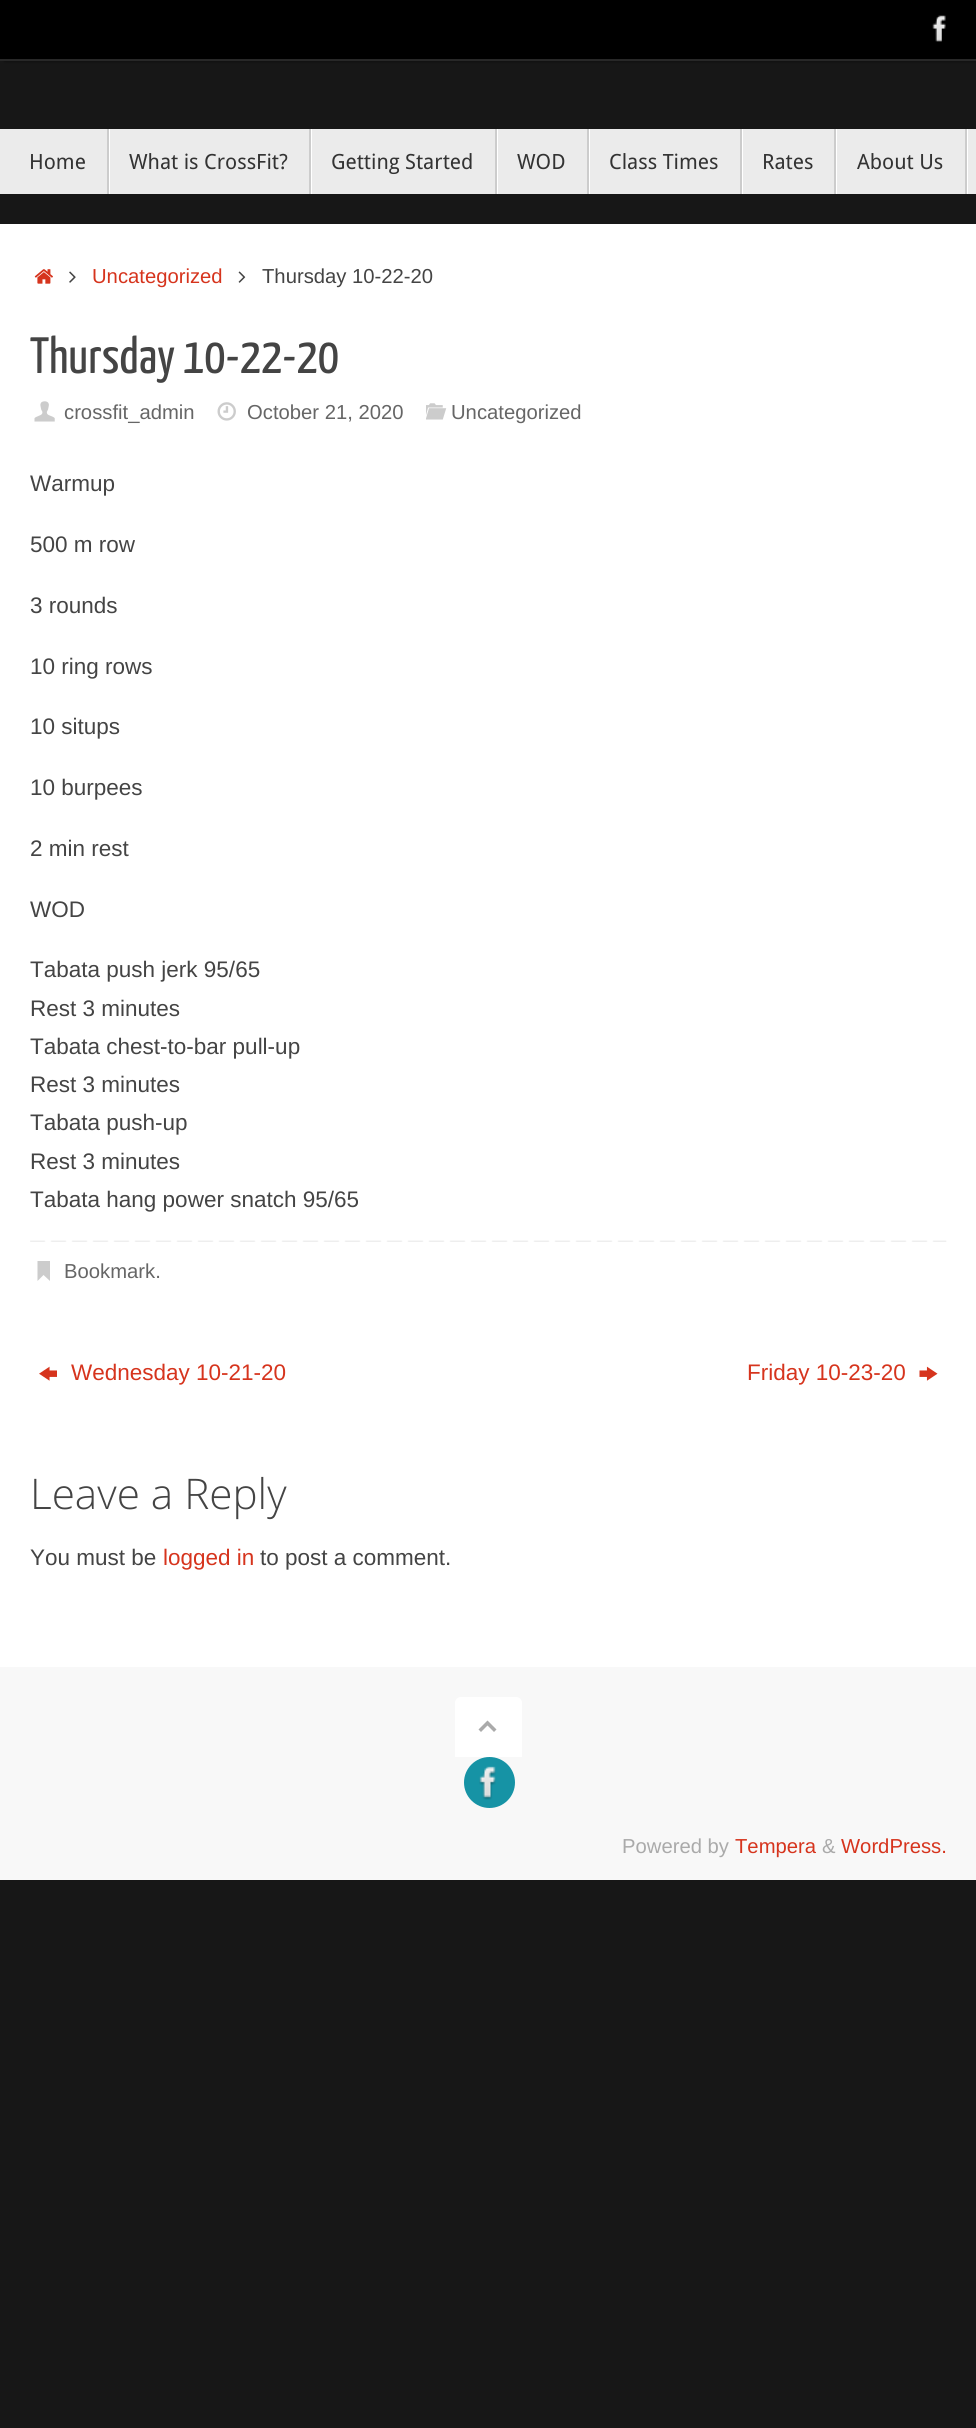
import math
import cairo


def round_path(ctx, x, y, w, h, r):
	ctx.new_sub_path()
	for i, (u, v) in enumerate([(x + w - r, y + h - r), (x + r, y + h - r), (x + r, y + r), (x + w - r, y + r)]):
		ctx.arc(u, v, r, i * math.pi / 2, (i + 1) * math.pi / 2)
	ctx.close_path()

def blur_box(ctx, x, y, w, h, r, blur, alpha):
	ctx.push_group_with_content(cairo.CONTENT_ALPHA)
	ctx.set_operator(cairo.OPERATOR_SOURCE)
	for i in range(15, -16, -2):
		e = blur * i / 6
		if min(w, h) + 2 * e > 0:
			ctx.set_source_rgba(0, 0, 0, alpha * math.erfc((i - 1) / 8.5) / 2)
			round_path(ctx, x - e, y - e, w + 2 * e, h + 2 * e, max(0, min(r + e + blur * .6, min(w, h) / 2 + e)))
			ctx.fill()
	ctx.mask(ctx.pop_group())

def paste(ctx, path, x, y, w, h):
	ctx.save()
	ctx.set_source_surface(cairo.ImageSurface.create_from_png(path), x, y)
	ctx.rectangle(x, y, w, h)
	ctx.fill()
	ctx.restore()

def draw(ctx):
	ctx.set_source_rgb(0.09, 0.09, 0.09)
	ctx.paint()
	ctx.set_source_rgb(0, 0, 0)
	blur_box(ctx, 5, 0, 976, 60, 0, 2, 1)
	ctx.set_source_rgb(0, 0, 0)
	ctx.rectangle(0, 0, 976, 59)
	ctx.fill()
	ctx.set_source_rgb(0.157, 0.157, 0.157)
	ctx.rectangle(0, 59, 976, 2)
	ctx.fill()
	paste(ctx, 'media/1.png', 932, 15, 14, 27)
	ctx.set_source_rgb(0.918, 0.918, 0.918)
	ctx.rectangle(0, 129, 976, 65)
	ctx.fill()
	ctx.set_source_rgb(1, 1, 1)
	ctx.new_path()
	ctx.move_to(9, 194)
	ctx.line_to(110, 194)
	ctx.line_to(110, 129)
	ctx.line_to(108, 129)
	ctx.line_to(108, 194)
	ctx.close_path()
	ctx.fill()
	ctx.set_source_rgb(0.8, 0.8, 0.8)
	ctx.rectangle(107, 129, 2, 65)
	ctx.fill()
	ctx.select_font_face('Droid Sans')
	ctx.set_font_size(21)
	ctx.set_source_rgb(0.2, 0.2, 0.2)
	ctx.move_to(29, 169)
	ctx.show_text('Home')
	ctx.set_source_rgb(1, 1, 1)
	ctx.new_path()
	ctx.move_to(110, 194)
	ctx.line_to(312, 194)
	ctx.line_to(312, 129)
	ctx.line_to(310, 129)
	ctx.line_to(310, 194)
	ctx.close_path()
	ctx.fill()
	ctx.set_source_rgb(0.8, 0.8, 0.8)
	ctx.rectangle(309, 129, 2, 65)
	ctx.fill()
	ctx.set_source_rgb(0.2, 0.2, 0.2)
	ctx.move_to(129, 169)
	ctx.show_text('What is CrossFit?')
	ctx.set_source_rgb(1, 1, 1)
	ctx.new_path()
	ctx.move_to(312, 194)
	ctx.line_to(498, 194)
	ctx.line_to(498, 129)
	ctx.line_to(496, 129)
	ctx.line_to(496, 194)
	ctx.close_path()
	ctx.fill()
	ctx.set_source_rgb(0.8, 0.8, 0.8)
	ctx.rectangle(495, 129, 2, 65)
	ctx.fill()
	ctx.set_source_rgb(0.2, 0.2, 0.2)
	ctx.move_to(331, 169)
	ctx.show_text('Getting Started')
	ctx.set_source_rgb(1, 1, 1)
	ctx.new_path()
	ctx.move_to(498, 194)
	ctx.line_to(590, 194)
	ctx.line_to(590, 129)
	ctx.line_to(588, 129)
	ctx.line_to(588, 194)
	ctx.close_path()
	ctx.fill()
	ctx.set_source_rgb(0.8, 0.8, 0.8)
	ctx.rectangle(587, 129, 2, 65)
	ctx.fill()
	ctx.set_source_rgb(0.2, 0.2, 0.2)
	ctx.move_to(517, 169)
	ctx.show_text('WOD')
	ctx.set_source_rgb(1, 1, 1)
	ctx.new_path()
	ctx.move_to(590, 194)
	ctx.line_to(743, 194)
	ctx.line_to(743, 129)
	ctx.line_to(741, 129)
	ctx.line_to(741, 194)
	ctx.close_path()
	ctx.fill()
	ctx.set_source_rgb(0.8, 0.8, 0.8)
	ctx.rectangle(740, 129, 2, 65)
	ctx.fill()
	ctx.set_source_rgb(0.2, 0.2, 0.2)
	ctx.move_to(609, 169)
	ctx.show_text('Class Times')
	ctx.set_source_rgb(1, 1, 1)
	ctx.new_path()
	ctx.move_to(743, 194)
	ctx.line_to(837, 194)
	ctx.line_to(837, 129)
	ctx.line_to(836, 129)
	ctx.line_to(836, 194)
	ctx.close_path()
	ctx.fill()
	ctx.set_source_rgb(0.8, 0.8, 0.8)
	ctx.rectangle(834, 129, 2, 65)
	ctx.fill()
	ctx.set_source_rgb(0.2, 0.2, 0.2)
	ctx.move_to(762, 169)
	ctx.show_text('Rates')
	ctx.set_source_rgb(1, 1, 1)
	ctx.new_path()
	ctx.move_to(837, 194)
	ctx.line_to(968, 194)
	ctx.line_to(968, 129)
	ctx.line_to(966, 129)
	ctx.line_to(966, 194)
	ctx.close_path()
	ctx.fill()
	ctx.set_source_rgb(0.8, 0.8, 0.8)
	ctx.rectangle(965, 129, 2, 65)
	ctx.fill()
	ctx.set_source_rgb(0.2, 0.2, 0.2)
	ctx.move_to(857, 169)
	ctx.show_text('About Us')
	ctx.set_source_rgb(1, 1, 1)
	ctx.rectangle(0, 224, 976, 1443)
	ctx.fill()
	paste(ctx, 'media/2.png', 34, 269, 19, 15)
	paste(ctx, 'media/3.png', 69, 271, 7, 12)
	ctx.select_font_face('Liberation Sans')
	ctx.set_font_size(20.25)
	ctx.set_source_rgb(0.839, 0.204, 0.114)
	ctx.move_to(92, 283)
	ctx.show_text('Uncategorized')
	paste(ctx, 'media/4.png', 238, 271, 8, 12)
	ctx.set_source_rgb(0.267, 0.267, 0.267)
	ctx.move_to(262, 283)
	ctx.show_text('Thursday 10-22-20')
	ctx.select_font_face('Yanone Kaffeesatz')
	ctx.set_font_size(51)
	ctx.move_to(30, 373)
	ctx.show_text('Thursday 10-22-20')
	paste(ctx, 'media/5.png', 34, 401, 21, 21)
	ctx.select_font_face('Liberation Sans')
	ctx.set_font_size(20.25)
	ctx.set_source_rgb(0.4, 0.4, 0.4)
	ctx.move_to(64, 419)
	ctx.show_text('crossfit_admin')
	paste(ctx, 'media/6.png', 217, 402, 19, 19)
	ctx.move_to(247, 419)
	ctx.show_text('October 21, 2020')
	paste(ctx, 'media/7.png', 426, 403, 21, 17)
	ctx.move_to(451, 419)
	ctx.show_text('Uncategorized')
	ctx.set_font_size(22.5)
	ctx.set_source_rgb(0.267, 0.267, 0.267)
	for x, y, s in [
		(30, 491, 'Warmup'),
		(30, 552, '500 m row'),
		(30, 613, '3 rounds'),
		(30, 674, '10 ring rows'),
		(30, 734, '10 situps'),
		(30, 795, '10 burpees'),
		(30, 856, '2 min rest'),
		(30, 917, 'WOD'),
		(30, 977, 'Tabata push jerk 95/65'),
		(30, 1016, 'Rest 3 minutes'),
		(30, 1054, 'Tabata chest-to-bar pull-up'),
		(30, 1092, 'Rest 3 minutes'),
		(30, 1130, 'Tabata push-up'),
		(30, 1169, 'Rest 3 minutes'),
		(30, 1207, 'Tabata hang power snatch 95/65'),
	]:
		ctx.move_to(x, y)
		ctx.show_text(s)
	paste(ctx, 'media/8.png', 30, 1240, 917, 2)
	ctx.set_source_rgb(0.8, 0.8, 0.8)
	ctx.new_path()
	ctx.move_to(37.5, 1279)
	ctx.line_to(37.5, 1261)
	ctx.line_to(50, 1261)
	ctx.line_to(50, 1281)
	ctx.line_to(43.5, 1275)
	ctx.line_to(37.5, 1281)
	ctx.close_path()
	ctx.fill()
	ctx.set_font_size(20.25)
	ctx.set_source_rgb(0.4, 0.4, 0.4)
	ctx.move_to(64, 1278)
	ctx.show_text('Bookmark.')
	paste(ctx, 'media/9.png', 39, 1366, 18, 15)
	ctx.set_font_size(22.5)
	ctx.set_source_rgb(0.839, 0.204, 0.114)
	ctx.move_to(71, 1380)
	ctx.show_text('Wednesday 10-21-20')
	ctx.move_to(747, 1380)
	ctx.show_text('Friday 10-23-20')
	paste(ctx, 'media/10.png', 919, 1366, 19, 15)
	ctx.select_font_face('Open Sans Light')
	ctx.set_font_size(42.25)
	ctx.set_source_rgb(0.267, 0.267, 0.267)
	ctx.move_to(30, 1509)
	ctx.show_text('Leave a Reply')
	ctx.select_font_face('Liberation Sans')
	ctx.set_font_size(22.5)
	ctx.move_to(30, 1565)
	ctx.show_text('You must be')
	ctx.set_source_rgb(0.839, 0.204, 0.114)
	ctx.move_to(163, 1565)
	ctx.show_text('logged in')
	ctx.set_source_rgb(0.267, 0.267, 0.267)
	ctx.move_to(260, 1565)
	ctx.show_text('to post a comment.')
	ctx.set_source_rgb(0.969, 0.969, 0.969)
	ctx.rectangle(0, 1667, 976, 213)
	ctx.fill()
	ctx.set_source_rgb(1, 1, 1)
	ctx.new_path()
	ctx.move_to(461, 1697)
	ctx.line_to(516, 1697)
	ctx.curve_to(519.5, 1697, 522, 1699.5, 522, 1703)
	ctx.line_to(522, 1757)
	ctx.line_to(455, 1757)
	ctx.line_to(455, 1703)
	ctx.curve_to(455, 1699.5, 457.5, 1697, 461, 1697)
	ctx.close_path()
	ctx.fill()
	ctx.set_source_rgb(0.667, 0.667, 0.667)
	ctx.new_path()
	ctx.move_to(478.5, 1729.5)
	ctx.line_to(487.5, 1720.5)
	ctx.line_to(496.5, 1729.5)
	ctx.line_to(494, 1732)
	ctx.line_to(487.5, 1725.5)
	ctx.line_to(481, 1732)
	ctx.close_path()
	ctx.fill()
	ctx.set_source_rgb(0.086, 0.576, 0.647)
	ctx.arc(489.5, 1782.5, 25.5, 0, 2 * math.pi)
	ctx.fill()
	paste(ctx, 'media/11.png', 479, 1766, 17, 34)
	ctx.set_font_size(20.25)
	ctx.set_source_rgb(0.667, 0.667, 0.667)
	ctx.move_to(622, 1853)
	ctx.show_text('Powered by')
	ctx.set_source_rgb(0.839, 0.204, 0.114)
	ctx.move_to(735, 1853)
	ctx.show_text('Tempera')
	ctx.set_source_rgb(0.667, 0.667, 0.667)
	ctx.move_to(822, 1853)
	ctx.show_text('&')
	ctx.set_source_rgb(0.839, 0.204, 0.114)
	ctx.move_to(841, 1853)
	ctx.show_text('WordPress.')


surface = cairo.ImageSurface(cairo.FORMAT_RGB24, 976, 2428)
ctx = cairo.Context(surface)
options = cairo.FontOptions()
options.set_hint_metrics(cairo.HINT_METRICS_OFF)
options.set_hint_style(cairo.HINT_STYLE_NONE)
ctx.set_font_options(options)
ctx.set_miter_limit(4)
draw(ctx)
surface.write_to_png('image.png')
